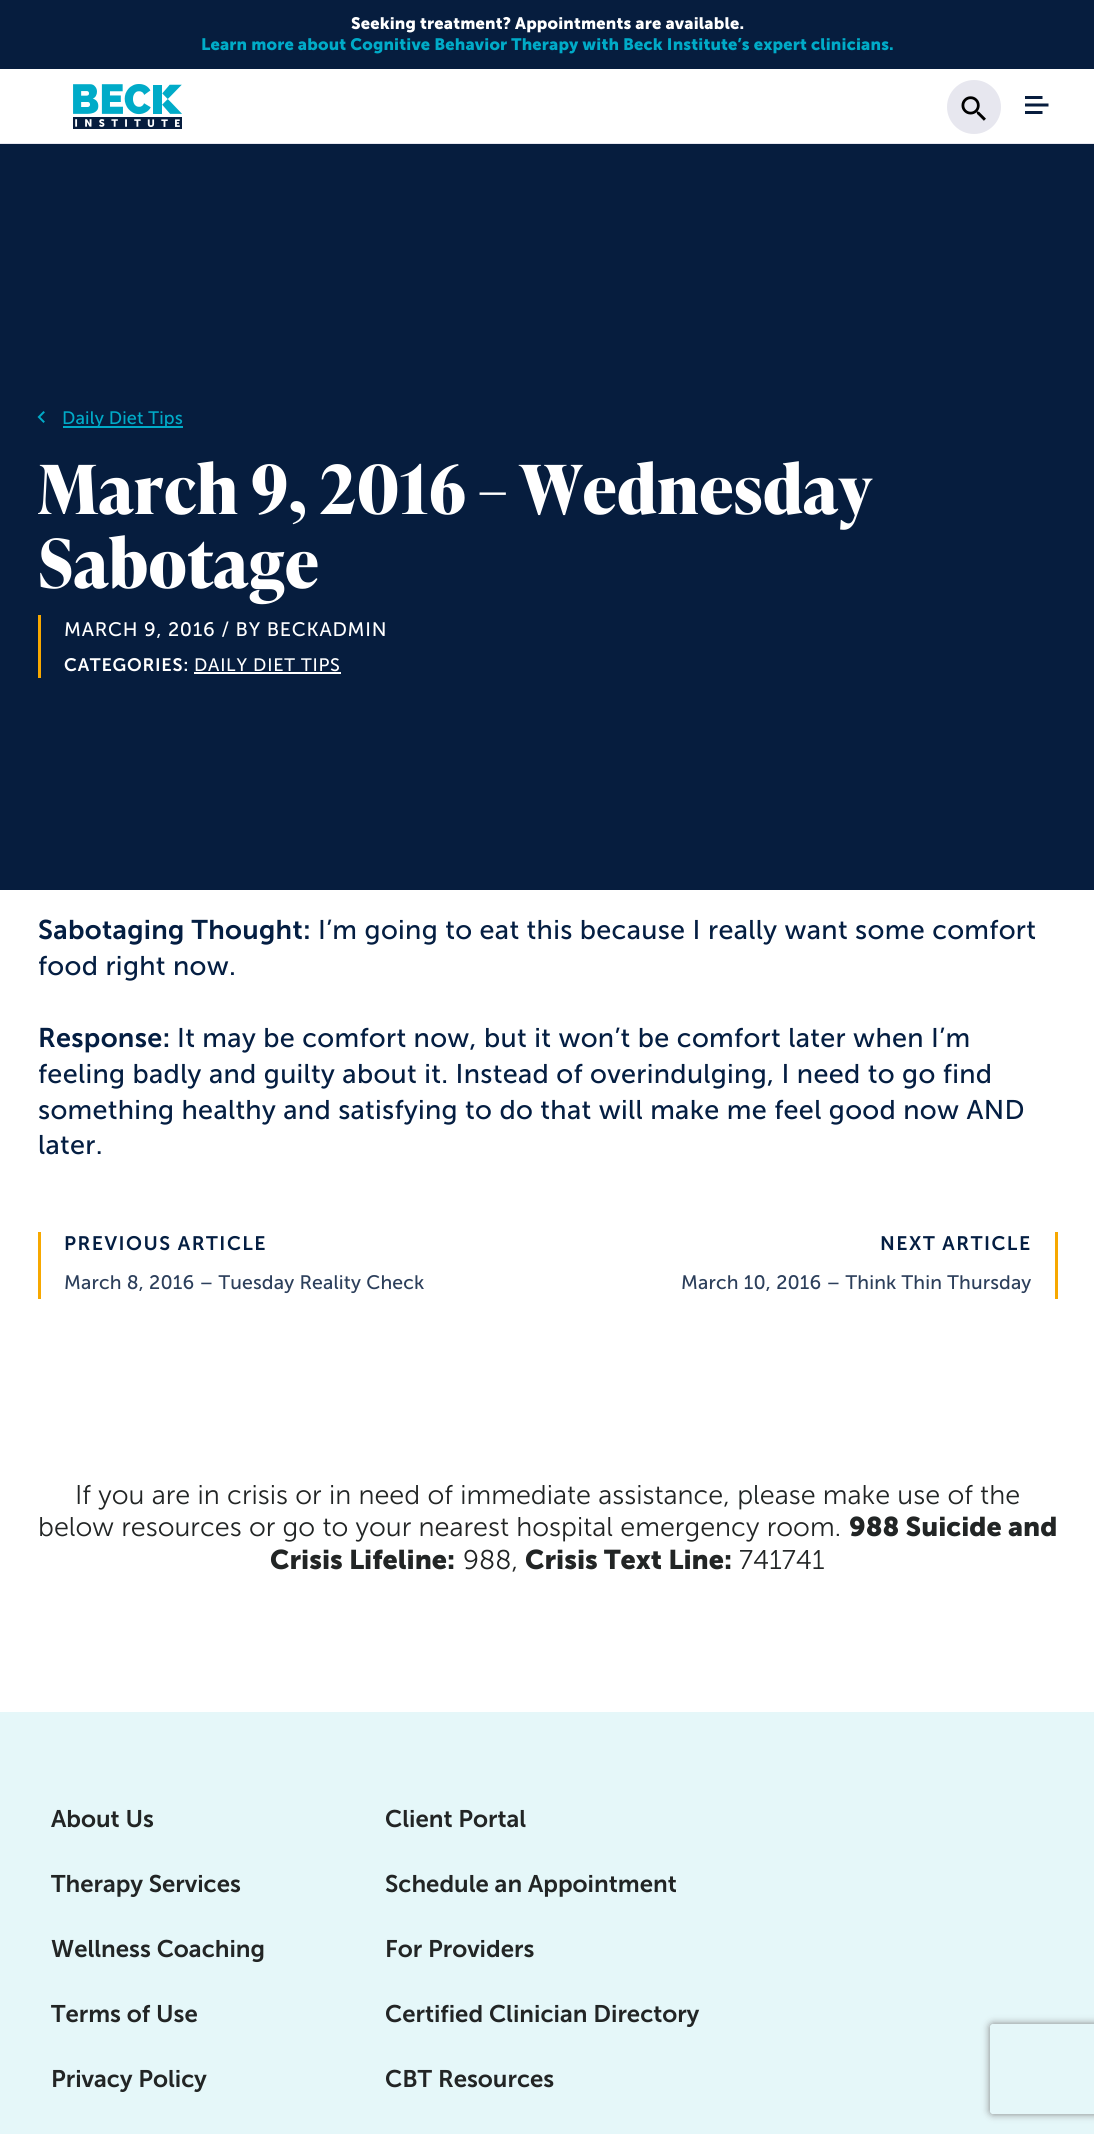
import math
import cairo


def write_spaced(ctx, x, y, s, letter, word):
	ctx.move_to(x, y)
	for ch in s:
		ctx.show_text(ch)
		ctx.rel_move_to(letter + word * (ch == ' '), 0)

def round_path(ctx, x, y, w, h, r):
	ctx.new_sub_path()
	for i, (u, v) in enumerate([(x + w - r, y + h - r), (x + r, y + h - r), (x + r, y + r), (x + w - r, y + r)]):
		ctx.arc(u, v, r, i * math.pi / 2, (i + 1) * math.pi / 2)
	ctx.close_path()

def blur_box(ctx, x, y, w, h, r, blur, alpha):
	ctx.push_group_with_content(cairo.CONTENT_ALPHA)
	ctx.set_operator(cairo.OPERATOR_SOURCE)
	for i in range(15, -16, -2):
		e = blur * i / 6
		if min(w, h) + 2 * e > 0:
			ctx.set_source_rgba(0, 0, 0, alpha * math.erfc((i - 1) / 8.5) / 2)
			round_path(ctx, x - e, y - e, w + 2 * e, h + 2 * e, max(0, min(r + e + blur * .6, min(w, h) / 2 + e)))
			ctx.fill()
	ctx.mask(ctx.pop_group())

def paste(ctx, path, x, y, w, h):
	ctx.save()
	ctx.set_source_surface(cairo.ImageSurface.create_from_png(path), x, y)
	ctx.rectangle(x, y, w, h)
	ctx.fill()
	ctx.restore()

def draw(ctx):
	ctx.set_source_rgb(1, 1, 1)
	ctx.paint()
	ctx.set_source_rgb(0.027, 0.114, 0.243)
	ctx.rectangle(0, 0, 1094, 69)
	ctx.fill()
	ctx.select_font_face('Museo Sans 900', cairo.FONT_SLANT_NORMAL, cairo.FONT_WEIGHT_BOLD)
	ctx.set_font_size(16.5)
	ctx.set_source_rgb(1, 1, 1)
	write_spaced(ctx, 351, 29, 'Seeking treatment? Appointments are available.', 0.17, 0)
	ctx.set_source_rgb(0, 0.671, 0.784)
	write_spaced(ctx, 201, 50, 'Learn more about Cognitive Behavior Therapy with Beck Institute’s expert clinicians.', 0.17, 0)
	ctx.set_source_rgb(0.906, 0.906, 0.937)
	ctx.rectangle(0, 143, 1094, 1)
	ctx.fill()
	paste(ctx, 'media/1.png', 73, 84, 109, 45)
	ctx.arc(974, 107, 27, 0, 2 * math.pi)
	ctx.fill()
	paste(ctx, 'media/2.png', 961, 96, 25, 25)
	paste(ctx, 'media/3.png', 1025, 96, 24, 18)
	ctx.set_source_rgb(0.027, 0.114, 0.243)
	ctx.rectangle(0, 144, 1094, 746)
	ctx.fill()
	paste(ctx, 'media/4.png', 37, 411, 8, 12)
	ctx.set_source_rgb(0, 0.671, 0.784)
	ctx.rectangle(63, 426, 120, 2)
	ctx.fill()
	ctx.select_font_face('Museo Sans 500')
	ctx.set_font_size(18)
	write_spaced(ctx, 62, 424, 'Daily Diet Tips', 0.15, 0)
	ctx.select_font_face('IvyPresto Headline', cairo.FONT_SLANT_NORMAL, cairo.FONT_WEIGHT_BOLD)
	ctx.set_font_size(67.5)
	ctx.set_source_rgb(1, 1, 1)
	write_spaced(ctx, 38, 514, 'March 9, 2016 – Wednesday', 0.4, 0)
	write_spaced(ctx, 38, 588, 'Sabotage', 0.4, 0)
	ctx.set_source_rgb(0.965, 0.659, 0)
	ctx.rectangle(38, 615, 3, 63)
	ctx.fill()
	ctx.select_font_face('Museo Sans 500')
	ctx.set_font_size(19.5)
	ctx.set_source_rgb(1, 1, 1)
	write_spaced(ctx, 64, 636, 'MARCH 9, 2016 / BY BECKADMIN', 0.75, 0)
	ctx.select_font_face('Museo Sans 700 SemiBold')
	ctx.set_font_size(18)
	write_spaced(ctx, 64, 671, 'CATEGORIES:', 0.75, 0)
	ctx.select_font_face('Museo Sans 500')
	write_spaced(ctx, 194, 671, 'DAILY DIET TIPS', 0.75, 0)
	ctx.rectangle(194, 672, 147, 2)
	ctx.fill()
	ctx.select_font_face('Museo Sans 700 SemiBold')
	ctx.set_font_size(27)
	ctx.set_source_rgb(0.016, 0.118, 0.259)
	write_spaced(ctx, 38, 939, 'Sabotaging Thought:', 0.3, 0)
	ctx.select_font_face('Museo Sans 500')
	write_spaced(ctx, 318, 939, 'I’m going to eat this because I really want some comfort', 0.3, 0)
	write_spaced(ctx, 38, 975, 'food right now.', 0.3, 0)
	ctx.select_font_face('Museo Sans 700 SemiBold')
	write_spaced(ctx, 38, 1047, 'Response:', 0.3, 0)
	ctx.select_font_face('Museo Sans 500')
	for x, y, s in [
		(177, 1047, 'It may be comfort now, but it won’t be comfort later when I’m'),
		(38, 1083, 'feeling badly and guilty about it. Instead of overindulging, I need to go find'),
		(38, 1119, 'something healthy and satisfying to do that will make me feel good now AND'),
		(38, 1154, 'later.'),
	]:
		write_spaced(ctx, x, y, s, 0.3, 0)
	ctx.set_source_rgb(0.965, 0.659, 0)
	ctx.rectangle(38, 1232, 3, 67)
	ctx.fill()
	ctx.select_font_face('Museo Sans 700 SemiBold')
	ctx.set_font_size(19.5)
	ctx.set_source_rgb(0.016, 0.118, 0.259)
	write_spaced(ctx, 64, 1250, 'PREVIOUS ARTICLE', 1.5, 0)
	ctx.select_font_face('Museo Sans 500')
	ctx.set_source_rgb(0.173, 0.247, 0.357)
	write_spaced(ctx, 64, 1289, 'March 8, 2016 – Tuesday Reality Check', 0.15, 0)
	ctx.select_font_face('Museo Sans 700 SemiBold')
	ctx.set_source_rgb(0.016, 0.118, 0.259)
	write_spaced(ctx, 880, 1250, 'NEXT ARTICLE', 1.5, 0)
	ctx.set_source_rgb(0.965, 0.659, 0)
	ctx.rectangle(1055, 1232, 3, 67)
	ctx.fill()
	ctx.select_font_face('Museo Sans 500')
	ctx.set_source_rgb(0.173, 0.247, 0.357)
	write_spaced(ctx, 681, 1289, 'March 10, 2016 – Think Thin Thursday', 0.15, 0)
	ctx.select_font_face('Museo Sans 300 Light')
	ctx.set_font_size(27)
	ctx.set_source_rgb(0.133, 0.145, 0.145)
	ctx.move_to(75, 1504)
	ctx.show_text('If you are in crisis or in need of immediate assistance, please make use of the')
	ctx.move_to(38, 1536)
	ctx.show_text('below resources or go to your nearest hospital emergency room.')
	ctx.select_font_face('Museo Sans 900', cairo.FONT_SLANT_NORMAL, cairo.FONT_WEIGHT_BOLD)
	ctx.move_to(849, 1536)
	ctx.show_text('988 Suicide and')
	ctx.move_to(270, 1569)
	ctx.show_text('Crisis Lifeline:')
	ctx.select_font_face('Museo Sans 300 Light')
	ctx.move_to(463, 1569)
	ctx.show_text('988,')
	ctx.select_font_face('Museo Sans 900', cairo.FONT_SLANT_NORMAL, cairo.FONT_WEIGHT_BOLD)
	ctx.move_to(525, 1569)
	ctx.show_text('Crisis Text Line:')
	ctx.select_font_face('Museo Sans 300 Light')
	ctx.move_to(739, 1569)
	ctx.show_text('741741')
	ctx.set_source_rgb(0.898, 0.965, 0.976)
	ctx.rectangle(0, 1712, 1094, 422)
	ctx.fill()
	ctx.select_font_face('Museo Sans 700 SemiBold')
	ctx.set_font_size(24)
	ctx.set_source_rgb(0.133, 0.145, 0.145)
	for x, y, s in [
		(51, 1827, 'About Us'),
		(51, 1892, 'Therapy Services'),
		(51, 1957, 'Wellness Coaching'),
		(51, 2022, 'Terms of Use'),
		(51, 2087, 'Privacy Policy'),
		(385, 1827, 'Client Portal'),
		(385, 1892, 'Schedule an Appointment'),
		(385, 1957, 'For Providers'),
		(385, 2022, 'Certified Clinician Directory'),
		(385, 2087, 'CBT Resources'),
	]:
		ctx.move_to(x, y)
		ctx.show_text(s)
	ctx.save()
	ctx.set_fill_rule(cairo.FILL_RULE_EVEN_ODD)
	ctx.new_path()
	ctx.move_to(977, 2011)
	ctx.line_to(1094, 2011)
	ctx.line_to(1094, 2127)
	ctx.line_to(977, 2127)
	ctx.close_path()
	ctx.move_to(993, 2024)
	ctx.line_to(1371, 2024)
	ctx.curve_to(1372.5, 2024, 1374, 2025.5, 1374, 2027)
	ctx.line_to(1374, 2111)
	ctx.curve_to(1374, 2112.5, 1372.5, 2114, 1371, 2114)
	ctx.line_to(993, 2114)
	ctx.curve_to(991.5, 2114, 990, 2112.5, 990, 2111)
	ctx.line_to(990, 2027)
	ctx.curve_to(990, 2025.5, 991.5, 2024, 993, 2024)
	ctx.close_path()
	ctx.clip()
	ctx.set_source_rgb(0.502, 0.502, 0.502)
	blur_box(ctx, 990, 2024, 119, 90, 3, 4, 1)
	ctx.restore()


surface = cairo.ImageSurface(cairo.FORMAT_RGB24, 1094, 2134)
ctx = cairo.Context(surface)
options = cairo.FontOptions()
options.set_hint_metrics(cairo.HINT_METRICS_OFF)
options.set_hint_style(cairo.HINT_STYLE_NONE)
ctx.set_font_options(options)
ctx.set_miter_limit(4)
draw(ctx)
surface.write_to_png('image.png')
